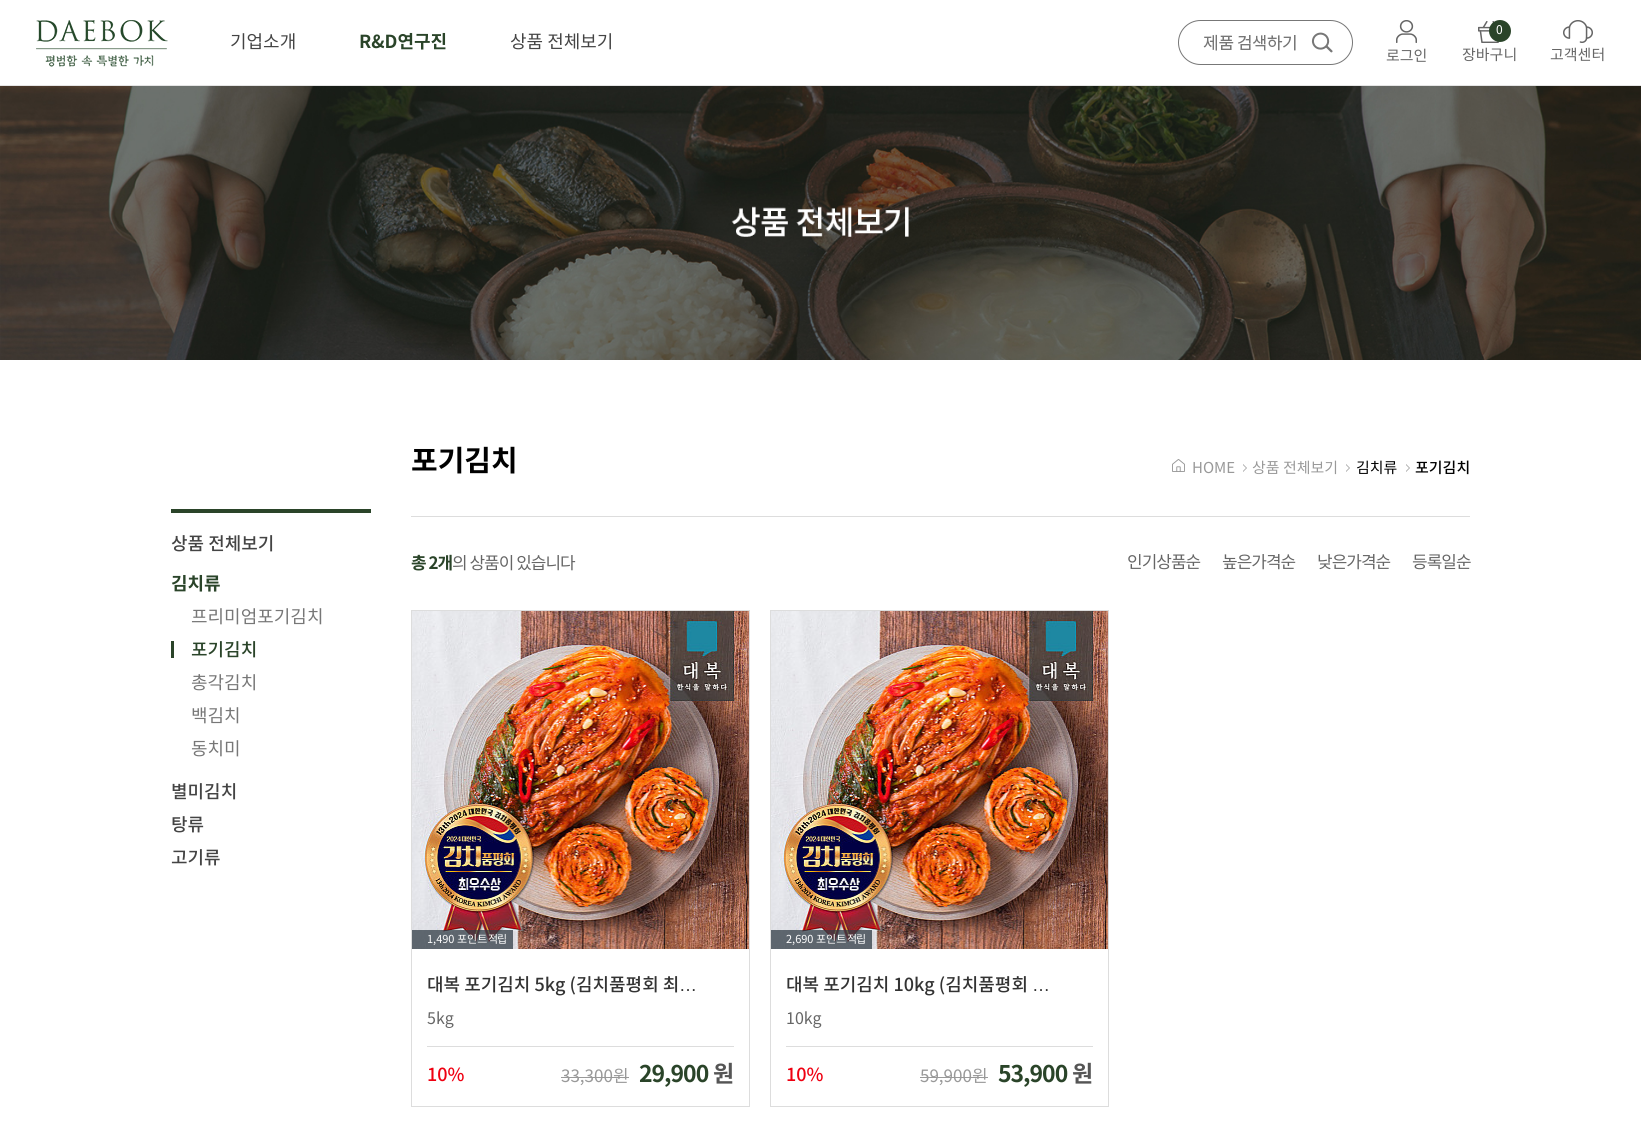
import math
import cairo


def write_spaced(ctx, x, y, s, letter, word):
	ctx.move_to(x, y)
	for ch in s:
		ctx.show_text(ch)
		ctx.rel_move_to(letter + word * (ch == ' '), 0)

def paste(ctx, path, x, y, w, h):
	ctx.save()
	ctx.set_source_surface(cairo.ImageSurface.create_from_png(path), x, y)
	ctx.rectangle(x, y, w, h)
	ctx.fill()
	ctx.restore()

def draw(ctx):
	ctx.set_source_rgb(1, 1, 1)
	ctx.paint()
	ctx.set_source_rgb(0.898, 0.898, 0.898)
	ctx.rectangle(0, 85, 1641, 1)
	ctx.fill()
	paste(ctx, 'media/1.png', 36, 20, 132, 47)
	ctx.select_font_face('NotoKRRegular')
	ctx.set_font_size(18)
	ctx.set_source_rgb(0.267, 0.267, 0.267)
	ctx.move_to(230, 48)
	ctx.show_text('기업소개')
	ctx.select_font_face('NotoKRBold', cairo.FONT_SLANT_NORMAL, cairo.FONT_WEIGHT_BOLD)
	ctx.set_source_rgb(0.165, 0.267, 0.161)
	ctx.move_to(359, 48)
	ctx.show_text('R&D연구진')
	ctx.select_font_face('NotoKRRegular')
	ctx.set_source_rgb(0.267, 0.267, 0.267)
	ctx.move_to(510, 48)
	ctx.show_text('상품 전체보기')
	paste(ctx, 'media/2.png', 1178, 20, 175, 45)
	paste(ctx, 'media/3.png', 1396, 20, 21, 23)
	ctx.set_font_size(15)
	ctx.set_source_rgb(0.4, 0.4, 0.4)
	ctx.move_to(1386, 61)
	ctx.show_text('로그인')
	paste(ctx, 'media/4.png', 1478, 21, 21, 22)
	ctx.set_source_rgb(0.165, 0.267, 0.161)
	ctx.arc(1500, 31, 11, 0, 2 * math.pi)
	ctx.fill()
	ctx.set_font_size(12)
	ctx.set_source_rgb(1, 1, 1)
	ctx.move_to(1496, 34)
	ctx.show_text('0')
	ctx.set_font_size(15)
	ctx.set_source_rgb(0.4, 0.4, 0.4)
	ctx.move_to(1462, 60)
	ctx.show_text('장바구니')
	paste(ctx, 'media/5.png', 1563, 20, 30, 23)
	ctx.move_to(1550, 60)
	ctx.show_text('고객센터')
	paste(ctx, 'media/6.png', 0, 86, 1641, 274)
	ctx.set_source_rgb(0.165, 0.267, 0.161)
	ctx.rectangle(171, 509, 200, 4)
	ctx.fill()
	ctx.select_font_face('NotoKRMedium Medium')
	ctx.set_font_size(18)
	ctx.set_source_rgb(0.267, 0.267, 0.267)
	ctx.move_to(171, 550)
	ctx.show_text('상품 전체보기')
	ctx.select_font_face('NotoKRBold', cairo.FONT_SLANT_NORMAL, cairo.FONT_WEIGHT_BOLD)
	ctx.set_source_rgb(0.165, 0.267, 0.161)
	ctx.move_to(171, 590)
	ctx.show_text('김치류')
	ctx.select_font_face('NotoKRRegular')
	ctx.set_source_rgb(0.467, 0.467, 0.467)
	ctx.move_to(191, 623)
	ctx.show_text('프리미엄포기김치')
	ctx.set_source_rgb(0.165, 0.267, 0.161)
	ctx.rectangle(171, 641, 3, 17)
	ctx.fill()
	ctx.select_font_face('NotoKRMedium Medium')
	ctx.move_to(191, 656)
	ctx.show_text('포기김치')
	ctx.select_font_face('NotoKRRegular')
	ctx.set_source_rgb(0.467, 0.467, 0.467)
	for x, y, s in [
		(191, 689, '총각김치'),
		(191, 722, '백김치'),
		(191, 755, '동치미'),
	]:
		ctx.move_to(x, y)
		ctx.show_text(s)
	ctx.select_font_face('NotoKRMedium Medium')
	ctx.set_source_rgb(0.267, 0.267, 0.267)
	for x, y, s in [
		(171, 798, '별미김치'),
		(171, 831, '탕류'),
		(171, 864, '고기류'),
	]:
		ctx.move_to(x, y)
		ctx.show_text(s)
	ctx.set_source_rgb(0.867, 0.867, 0.867)
	ctx.rectangle(411, 516, 1059, 1)
	ctx.fill()
	ctx.select_font_face('NotoKRBold', cairo.FONT_SLANT_NORMAL, cairo.FONT_WEIGHT_BOLD)
	ctx.set_font_size(29)
	ctx.set_source_rgb(0, 0, 0)
	ctx.move_to(411, 471)
	ctx.show_text('포기김치')
	paste(ctx, 'media/7.png', 1172, 459, 13, 13)
	ctx.select_font_face('NotoKRRegular')
	ctx.set_font_size(15)
	ctx.set_source_rgb(0.6, 0.6, 0.6)
	ctx.move_to(1192, 473)
	ctx.show_text('HOME')
	paste(ctx, 'media/8.png', 1243, 464, 4, 8)
	ctx.move_to(1252, 473)
	ctx.show_text('상품 전체보기')
	paste(ctx, 'media/8.png', 1346, 464, 4, 8)
	ctx.set_source_rgb(0, 0, 0)
	ctx.move_to(1356, 473)
	ctx.show_text('김치류')
	paste(ctx, 'media/8.png', 1406, 464, 4, 8)
	ctx.select_font_face('NotoKRMedium Medium')
	ctx.move_to(1415, 473)
	ctx.show_text('포기김치')
	ctx.select_font_face('NotoKRBold', cairo.FONT_SLANT_NORMAL, cairo.FONT_WEIGHT_BOLD)
	ctx.set_font_size(17)
	ctx.set_source_rgb(0.165, 0.267, 0.161)
	write_spaced(ctx, 411, 569, '총 2개', -1, 0)
	ctx.select_font_face('NotoKRRegular')
	ctx.set_source_rgb(0.4, 0.4, 0.4)
	for x, y, s in [
		(452, 569, '의 상품이 있습니다'),
		(1127, 568, '인기상품순'),
		(1222, 568, '높은가격순'),
		(1317, 568, '낮은가격순'),
		(1412, 568, '등록일순'),
	]:
		write_spaced(ctx, x, y, s, -1, 0)
	ctx.rectangle(411.5, 610.5, 338, 496)
	ctx.set_source_rgb(0.867, 0.867, 0.867)
	ctx.set_line_width(1)
	ctx.stroke()
	paste(ctx, 'media/9.png', 412, 611, 337, 338)
	ctx.set_source_rgba(0.196, 0.235, 0.275, 0.75)
	ctx.rectangle(412, 930, 101, 19)
	ctx.fill()
	ctx.set_font_size(11)
	ctx.set_source_rgb(1, 1, 1)
	ctx.move_to(427, 943)
	ctx.show_text('1,490 포인트')
	write_spaced(ctx, 488, 943, '적립', -1, 0)
	ctx.set_source_rgb(0.867, 0.867, 0.867)
	ctx.rectangle(427, 1046, 307, 1)
	ctx.fill()
	ctx.select_font_face('NotoKRMedium Medium')
	ctx.set_font_size(18)
	ctx.set_source_rgb(0.2, 0.2, 0.2)
	ctx.move_to(427, 991)
	ctx.show_text('대복 포기김치 5kg (김치품평회 최')
	ctx.select_font_face('Liberation Sans')
	ctx.move_to(679, 991)
	ctx.show_text('…')
	ctx.select_font_face('NotoKRRegular')
	ctx.set_font_size(16)
	ctx.set_source_rgb(0.4, 0.4, 0.4)
	ctx.move_to(427, 1024)
	ctx.show_text('5kg')
	ctx.select_font_face('NotoKRMedium Medium')
	ctx.set_font_size(18)
	ctx.set_source_rgb(0.937, 0, 0.067)
	ctx.move_to(427, 1081)
	ctx.show_text('10%')
	ctx.select_font_face('NotoKRRegular')
	ctx.set_font_size(17)
	ctx.set_source_rgb(0.6, 0.6, 0.6)
	ctx.move_to(561, 1082)
	ctx.show_text('33,300원')
	ctx.rectangle(561, 1077, 68, 1)
	ctx.fill()
	ctx.select_font_face('NotoKRBold', cairo.FONT_SLANT_NORMAL, cairo.FONT_WEIGHT_BOLD)
	ctx.set_font_size(23)
	ctx.set_source_rgb(0.165, 0.267, 0.161)
	write_spaced(ctx, 639, 1082, '29,900', -1, 0)
	ctx.set_source_rgb(0.333, 0.333, 0.333)
	ctx.move_to(713, 1082)
	ctx.show_text('원')
	ctx.rectangle(770.5, 610.5, 338, 496)
	ctx.set_source_rgb(0.867, 0.867, 0.867)
	ctx.stroke()
	paste(ctx, 'media/10.png', 771, 611, 337, 338)
	ctx.set_source_rgba(0.196, 0.235, 0.275, 0.75)
	ctx.rectangle(771, 930, 101, 19)
	ctx.fill()
	ctx.select_font_face('NotoKRRegular')
	ctx.set_font_size(11)
	ctx.set_source_rgb(1, 1, 1)
	ctx.move_to(786, 943)
	ctx.show_text('2,690 포인트')
	write_spaced(ctx, 847, 943, '적립', -1, 0)
	ctx.set_source_rgb(0.867, 0.867, 0.867)
	ctx.rectangle(786, 1046, 307, 1)
	ctx.fill()
	ctx.select_font_face('NotoKRMedium Medium')
	ctx.set_font_size(18)
	ctx.set_source_rgb(0.2, 0.2, 0.2)
	ctx.move_to(786, 991)
	ctx.show_text('대복 포기김치 10kg (김치품평회')
	ctx.select_font_face('Liberation Sans')
	ctx.move_to(1032, 991)
	ctx.show_text('…')
	ctx.select_font_face('NotoKRRegular')
	ctx.set_font_size(16)
	ctx.set_source_rgb(0.4, 0.4, 0.4)
	ctx.move_to(786, 1024)
	ctx.show_text('10kg')
	ctx.select_font_face('NotoKRMedium Medium')
	ctx.set_font_size(18)
	ctx.set_source_rgb(0.937, 0, 0.067)
	ctx.move_to(786, 1081)
	ctx.show_text('10%')
	ctx.select_font_face('NotoKRRegular')
	ctx.set_font_size(17)
	ctx.set_source_rgb(0.6, 0.6, 0.6)
	ctx.move_to(920, 1082)
	ctx.show_text('59,900원')
	ctx.rectangle(920, 1077, 68, 1)
	ctx.fill()
	ctx.select_font_face('NotoKRBold', cairo.FONT_SLANT_NORMAL, cairo.FONT_WEIGHT_BOLD)
	ctx.set_font_size(23)
	ctx.set_source_rgb(0.165, 0.267, 0.161)
	write_spaced(ctx, 998, 1082, '53,900', -1, 0)
	ctx.set_source_rgb(0.333, 0.333, 0.333)
	ctx.move_to(1072, 1082)
	ctx.show_text('원')


surface = cairo.ImageSurface(cairo.FORMAT_RGB24, 1641, 1132)
ctx = cairo.Context(surface)
options = cairo.FontOptions()
options.set_hint_metrics(cairo.HINT_METRICS_OFF)
options.set_hint_style(cairo.HINT_STYLE_NONE)
ctx.set_font_options(options)
ctx.set_miter_limit(4)
draw(ctx)
surface.write_to_png('image.png')
